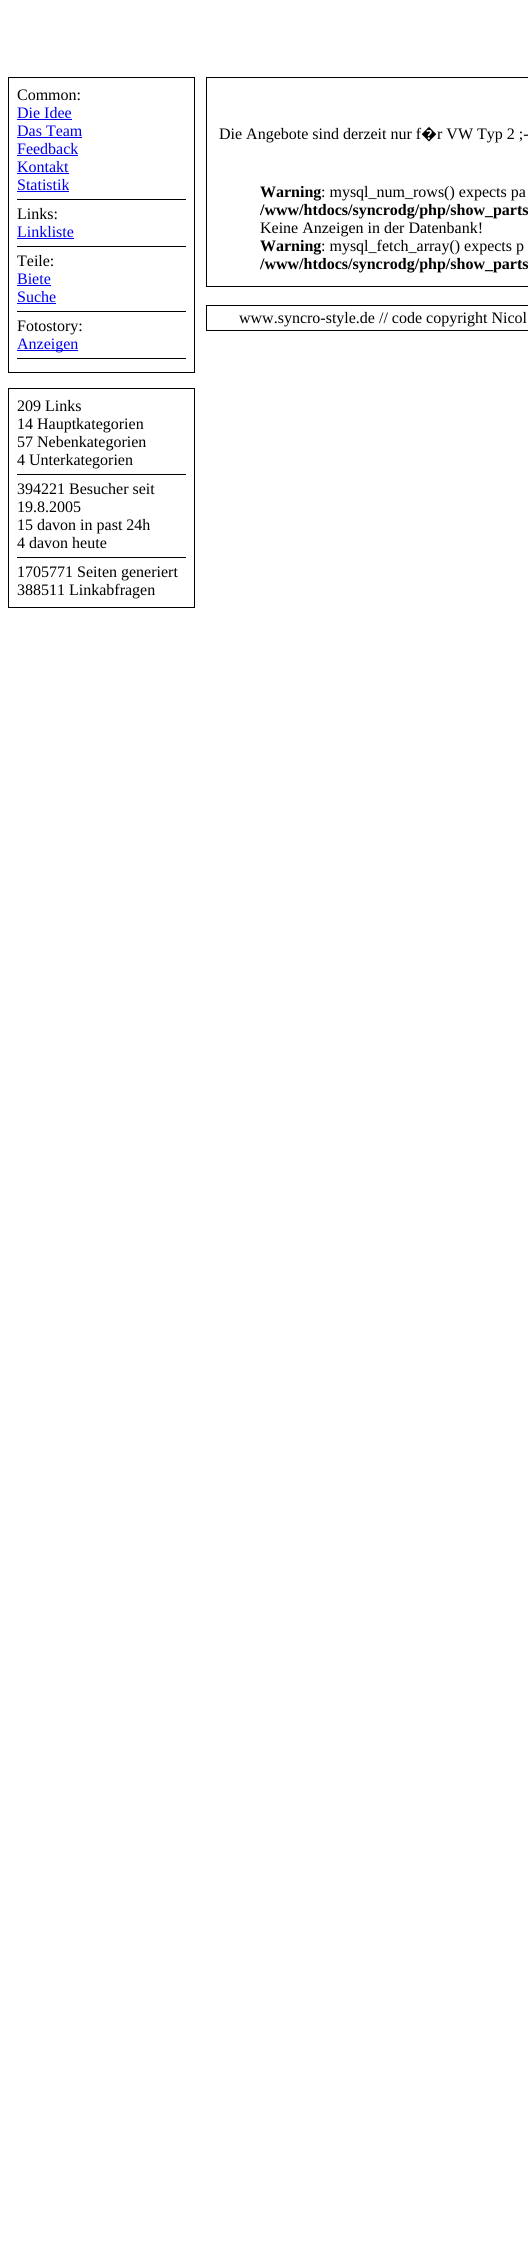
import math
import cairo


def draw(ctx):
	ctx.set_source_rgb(1, 1, 1)
	ctx.paint()
	ctx.set_source_rgb(0, 0, 0)
	ctx.rectangle(8, 77, 187, 296)
	ctx.fill()
	ctx.set_source_rgb(1, 1, 1)
	ctx.rectangle(9, 78, 185, 294)
	ctx.fill()
	ctx.select_font_face('Liberation Serif')
	ctx.set_font_size(16)
	ctx.set_source_rgb(0, 0, 0)
	ctx.move_to(17, 100)
	ctx.show_text('Common:')
	ctx.set_source_rgb(0, 0, 0.933)
	ctx.move_to(17, 118)
	ctx.show_text('Die Idee')
	ctx.rectangle(17, 119, 55, 1)
	ctx.fill()
	ctx.move_to(17, 136)
	ctx.show_text('Das Team')
	ctx.rectangle(17, 137, 65, 1)
	ctx.fill()
	ctx.move_to(17, 154)
	ctx.show_text('Feedback')
	ctx.rectangle(17, 155, 61, 1)
	ctx.fill()
	ctx.move_to(17, 172)
	ctx.show_text('Kontakt')
	ctx.rectangle(17, 173, 52, 1)
	ctx.fill()
	ctx.move_to(17, 190)
	ctx.show_text('Statistik')
	ctx.rectangle(17, 191, 52, 1)
	ctx.fill()
	ctx.set_source_rgb(0, 0, 0)
	ctx.rectangle(17, 199, 169, 1)
	ctx.fill()
	ctx.move_to(17, 219)
	ctx.show_text('Links:')
	ctx.set_source_rgb(0, 0, 0.933)
	ctx.move_to(17, 237)
	ctx.show_text('Linkliste')
	ctx.rectangle(17, 238, 57, 1)
	ctx.fill()
	ctx.set_source_rgb(0, 0, 0)
	ctx.rectangle(17, 246, 169, 1)
	ctx.fill()
	ctx.move_to(17, 266)
	ctx.show_text('Teile:')
	ctx.set_source_rgb(0, 0, 0.933)
	ctx.move_to(17, 284)
	ctx.show_text('Biete')
	ctx.rectangle(17, 285, 34, 1)
	ctx.fill()
	ctx.move_to(17, 302)
	ctx.show_text('Suche')
	ctx.rectangle(17, 303, 39, 1)
	ctx.fill()
	ctx.set_source_rgb(0, 0, 0)
	ctx.rectangle(17, 311, 169, 1)
	ctx.fill()
	ctx.move_to(17, 331)
	ctx.show_text('Fotostory:')
	ctx.set_source_rgb(0, 0, 0.933)
	ctx.rectangle(17, 350, 61, 1)
	ctx.fill()
	ctx.move_to(17, 349)
	ctx.show_text('Anzeigen')
	ctx.set_source_rgb(0, 0, 0)
	ctx.rectangle(17, 358, 169, 1)
	ctx.rectangle(8, 388, 187, 220)
	ctx.fill()
	ctx.set_source_rgb(1, 1, 1)
	ctx.rectangle(9, 389, 185, 218)
	ctx.fill()
	ctx.set_source_rgb(0, 0, 0)
	for x, y, s in [
		(17, 411, '209 Links'),
		(17, 429, '14 Hauptkategorien'),
		(17, 447, '57 Nebenkategorien'),
		(17, 465, '4 Unterkategorien'),
	]:
		ctx.move_to(x, y)
		ctx.show_text(s)
	ctx.rectangle(17, 474, 169, 1)
	ctx.fill()
	for x, y, s in [
		(17, 494, '394221 Besucher seit'),
		(17, 512, '19.8.2005'),
		(17, 530, '15 davon in past 24h'),
		(17, 548, '4 davon heute'),
	]:
		ctx.move_to(x, y)
		ctx.show_text(s)
	ctx.rectangle(17, 557, 169, 1)
	ctx.fill()
	ctx.move_to(17, 577)
	ctx.show_text('1705771 Seiten generiert')
	ctx.move_to(17, 595)
	ctx.show_text('388511 Linkabfragen')
	ctx.rectangle(206, 77, 322, 210)
	ctx.fill()
	ctx.set_source_rgb(1, 1, 1)
	ctx.rectangle(207, 78, 321, 208)
	ctx.fill()
	ctx.set_source_rgb(0, 0, 0)
	ctx.move_to(219, 139)
	ctx.show_text('Die Angebote sind derzeit nur f')
	ctx.select_font_face('Noto Sans')
	ctx.move_to(421, 139)
	ctx.show_text('�')
	ctx.select_font_face('Liberation Serif')
	ctx.move_to(437, 139)
	ctx.show_text('r VW Typ 2 ;-')
	ctx.select_font_face('Liberation Serif', cairo.FONT_SLANT_NORMAL, cairo.FONT_WEIGHT_BOLD)
	ctx.move_to(260, 197)
	ctx.show_text('Warning')
	ctx.select_font_face('Liberation Serif')
	ctx.move_to(321, 197)
	ctx.show_text(': mysql_num_rows() expects pa')
	ctx.select_font_face('Liberation Serif', cairo.FONT_SLANT_NORMAL, cairo.FONT_WEIGHT_BOLD)
	ctx.move_to(260, 215)
	ctx.show_text('/www/htdocs/syncrodg/php/show_parts')
	ctx.select_font_face('Liberation Serif')
	ctx.move_to(260, 233)
	ctx.show_text('Keine Anzeigen in der Datenbank!')
	ctx.select_font_face('Liberation Serif', cairo.FONT_SLANT_NORMAL, cairo.FONT_WEIGHT_BOLD)
	ctx.move_to(260, 251)
	ctx.show_text('Warning')
	ctx.select_font_face('Liberation Serif')
	ctx.move_to(321, 251)
	ctx.show_text(': mysql_fetch_array() expects p')
	ctx.select_font_face('Liberation Serif', cairo.FONT_SLANT_NORMAL, cairo.FONT_WEIGHT_BOLD)
	ctx.move_to(260, 269)
	ctx.show_text('/www/htdocs/syncrodg/php/show_parts')
	ctx.rectangle(206, 305, 322, 26)
	ctx.fill()
	ctx.set_source_rgb(1, 1, 1)
	ctx.rectangle(207, 306, 321, 24)
	ctx.fill()
	ctx.select_font_face('Liberation Serif')
	ctx.set_source_rgb(0, 0, 0)
	ctx.move_to(239, 323)
	ctx.show_text('www.syncro-style.de // code copyright Nicol')


surface = cairo.ImageSurface(cairo.FORMAT_RGB24, 528, 2247)
ctx = cairo.Context(surface)
options = cairo.FontOptions()
options.set_hint_metrics(cairo.HINT_METRICS_OFF)
options.set_hint_style(cairo.HINT_STYLE_NONE)
ctx.set_font_options(options)
ctx.set_miter_limit(4)
draw(ctx)
surface.write_to_png('image.png')
